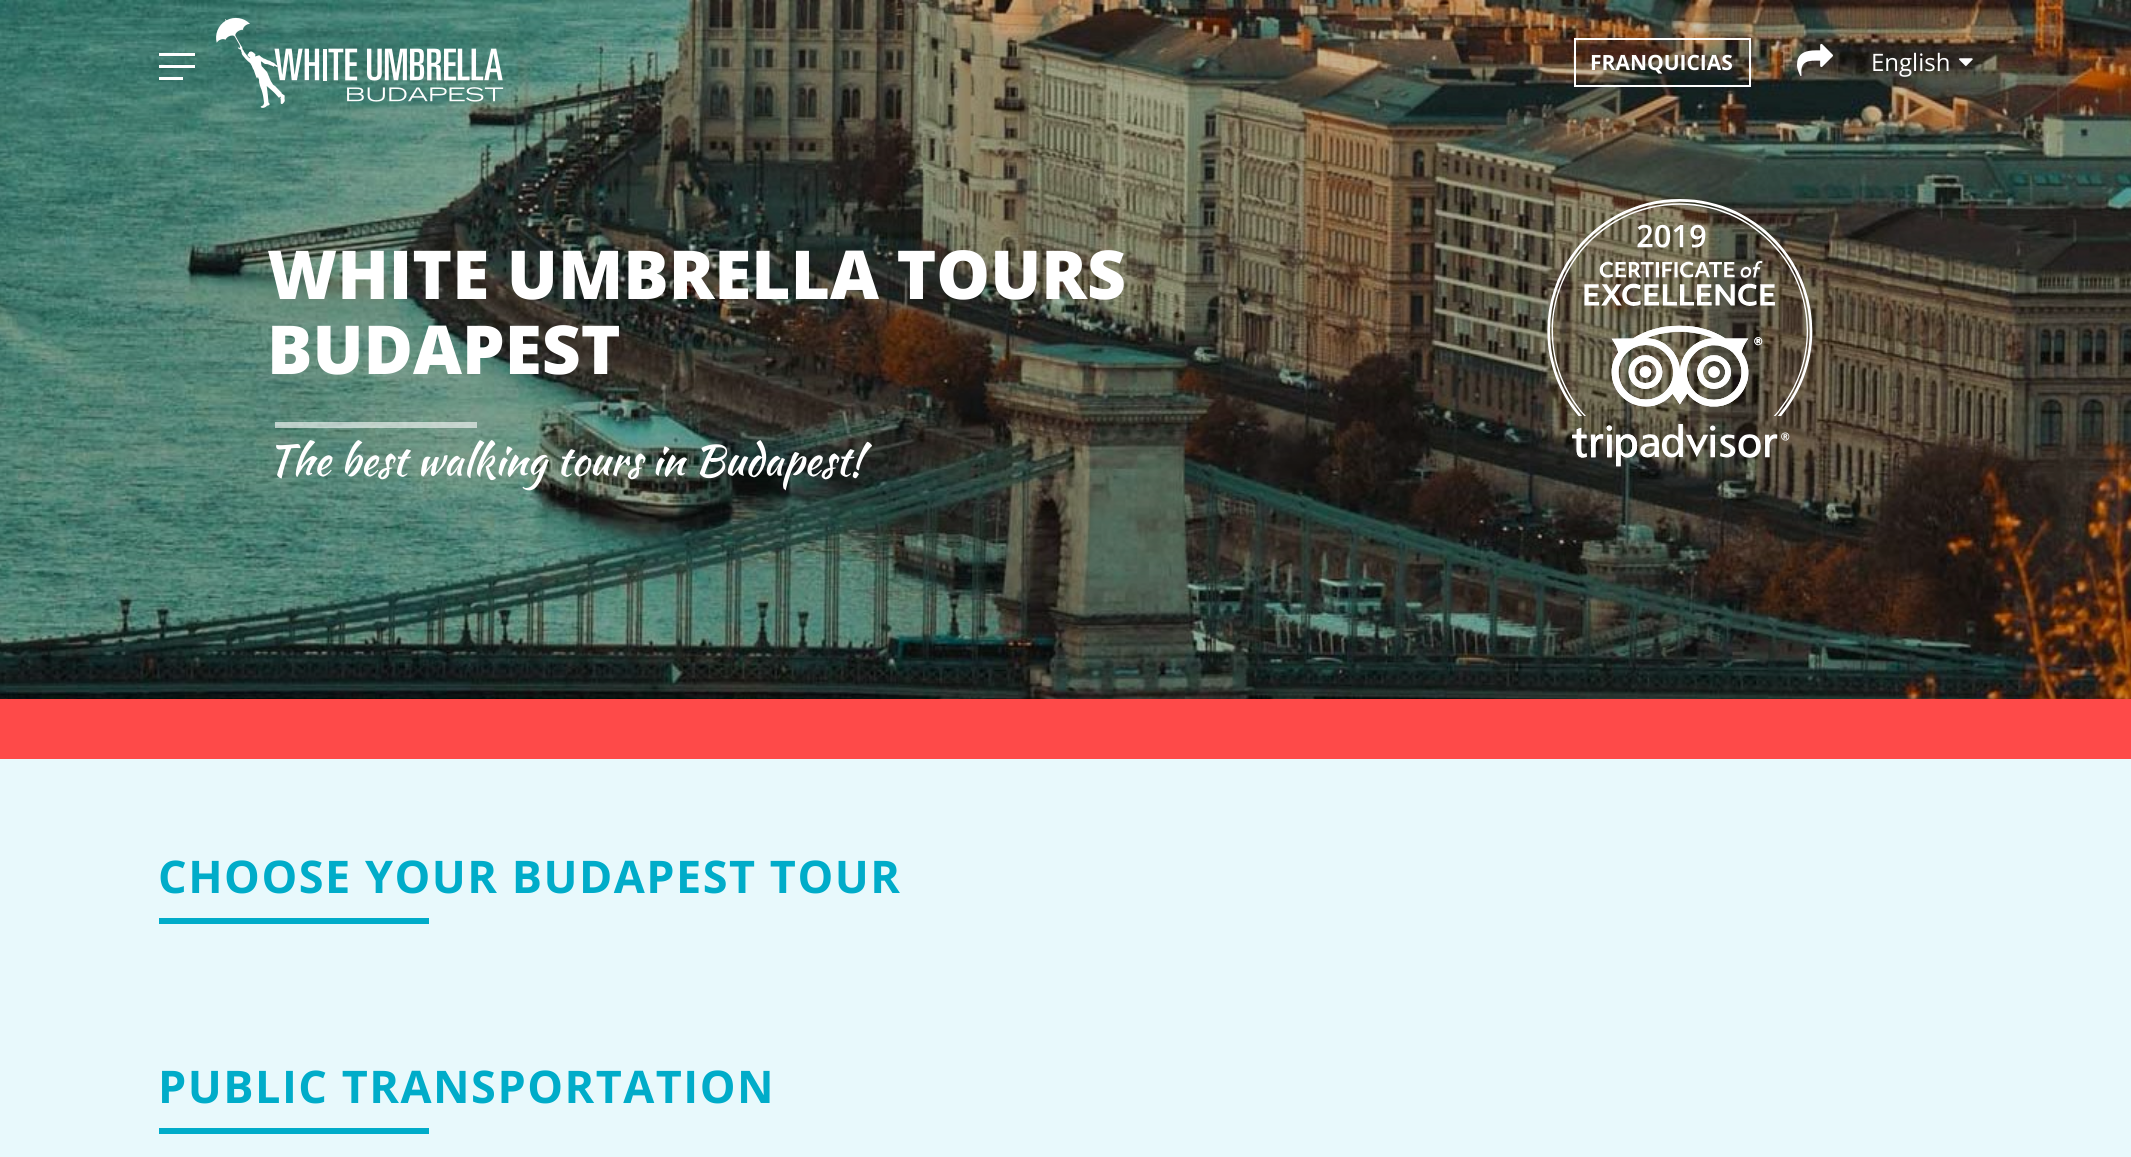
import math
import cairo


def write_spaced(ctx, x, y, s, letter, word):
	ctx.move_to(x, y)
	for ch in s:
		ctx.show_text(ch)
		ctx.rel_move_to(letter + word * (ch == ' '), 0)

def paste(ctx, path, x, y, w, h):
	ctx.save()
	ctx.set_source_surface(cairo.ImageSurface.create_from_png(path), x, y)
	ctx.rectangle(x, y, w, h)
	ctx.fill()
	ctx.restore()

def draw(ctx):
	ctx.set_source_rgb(0.91, 0.973, 0.988)
	ctx.paint()
	paste(ctx, 'media/4.png', 0, 0, 2131, 699)
	ctx.set_source_rgb(1, 1, 1)
	ctx.rectangle(159, 53, 36, 3)
	ctx.rectangle(159, 65, 36, 3)
	ctx.rectangle(159, 77, 24, 3)
	ctx.fill()
	paste(ctx, 'media/1.png', 216, 17, 288, 91)
	ctx.rectangle(1575, 39, 175, 47)
	ctx.stroke()
	ctx.select_font_face('Open Sans', cairo.FONT_SLANT_NORMAL, cairo.FONT_WEIGHT_BOLD)
	ctx.set_font_size(21)
	ctx.move_to(1590, 70)
	ctx.show_text('FRANQUICIAS')
	paste(ctx, 'media/2.png', 1797, 43, 36, 33)
	ctx.select_font_face('Open Sans')
	ctx.set_font_size(24)
	ctx.move_to(1871, 71)
	ctx.show_text('English')
	paste(ctx, 'media/3.png', 1959, 58, 14, 8)
	ctx.select_font_face('Open Sans ExtraBold')
	ctx.set_font_size(67.5)
	ctx.move_to(267, 299)
	ctx.show_text('WHITE UMBRELLA TOURS')
	ctx.move_to(267, 374)
	ctx.show_text('BUDAPEST')
	ctx.set_source_rgba(1, 1, 1, 0.6)
	ctx.rectangle(275, 422, 202, 6)
	ctx.fill()
	ctx.select_font_face('Kaushan Script')
	ctx.set_font_size(42)
	ctx.set_source_rgb(1, 1, 1)
	ctx.move_to(267, 475)
	ctx.show_text('The best walking tours in Budapest!')
	paste(ctx, 'media/5.png', 1547, 199, 266, 268)
	ctx.set_source_rgb(0.996, 0.29, 0.286)
	ctx.rectangle(0, 699, 2131, 60)
	ctx.fill()
	ctx.select_font_face('Open Sans', cairo.FONT_SLANT_NORMAL, cairo.FONT_WEIGHT_BOLD)
	ctx.set_font_size(45)
	ctx.set_source_rgb(0, 0.675, 0.788)
	write_spaced(ctx, 158, 893, 'CHOOSE YOUR BUDAPEST TOUR', 1.5, 0)
	ctx.rectangle(159, 918, 270, 6)
	ctx.fill()
	write_spaced(ctx, 158, 1103, 'PUBLIC TRANSPORTATION', 1.5, 0)
	ctx.rectangle(159, 1128, 270, 6)
	ctx.fill()


surface = cairo.ImageSurface(cairo.FORMAT_RGB24, 2131, 1157)
ctx = cairo.Context(surface)
options = cairo.FontOptions()
options.set_hint_metrics(cairo.HINT_METRICS_OFF)
options.set_hint_style(cairo.HINT_STYLE_NONE)
ctx.set_font_options(options)
ctx.set_miter_limit(4)
draw(ctx)
surface.write_to_png('image.png')
